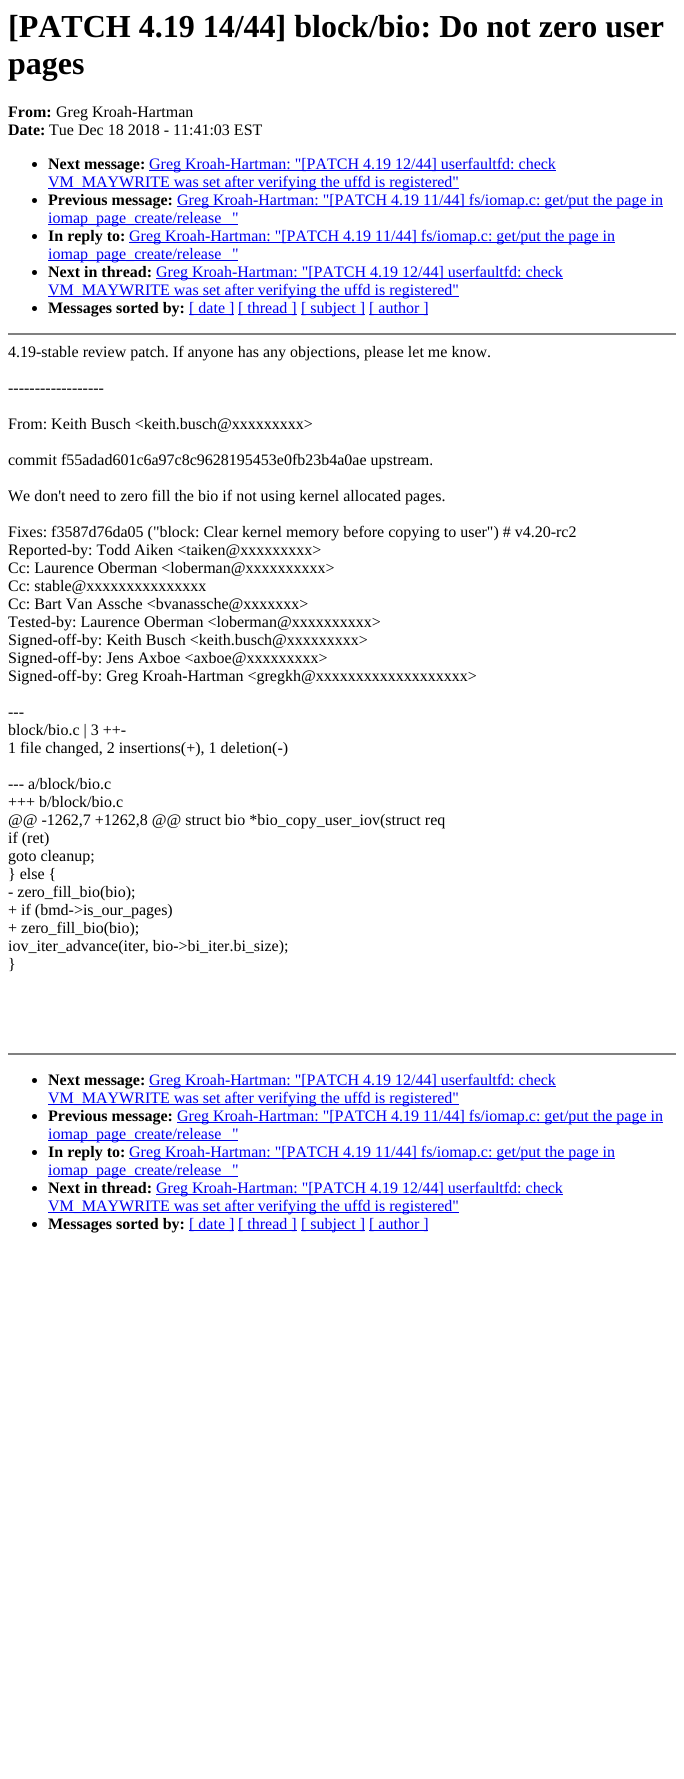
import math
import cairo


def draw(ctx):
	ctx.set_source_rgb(1, 1, 1)
	ctx.paint()
	ctx.select_font_face('Liberation Serif', cairo.FONT_SLANT_NORMAL, cairo.FONT_WEIGHT_BOLD)
	ctx.set_font_size(32)
	ctx.set_source_rgb(0, 0, 0)
	ctx.move_to(8, 37)
	ctx.show_text('[PATCH 4.19 14/44] block/bio: Do not zero user')
	ctx.move_to(8, 74)
	ctx.show_text('pages')
	ctx.set_font_size(16)
	ctx.move_to(8, 117)
	ctx.show_text('From:')
	ctx.select_font_face('Liberation Serif')
	ctx.move_to(56, 117)
	ctx.show_text('Greg Kroah-Hartman')
	ctx.select_font_face('Liberation Serif', cairo.FONT_SLANT_NORMAL, cairo.FONT_WEIGHT_BOLD)
	ctx.move_to(8, 135)
	ctx.show_text('Date:')
	ctx.select_font_face('Liberation Serif')
	ctx.move_to(49, 135)
	ctx.show_text('Tue Dec 18 2018 - 11:41:03 EST')
	ctx.new_path()
	ctx.arc(34.5, 164.5, 2.5, 0, 2 * math.pi)
	ctx.fill()
	ctx.select_font_face('Liberation Serif', cairo.FONT_SLANT_NORMAL, cairo.FONT_WEIGHT_BOLD)
	ctx.move_to(48, 169)
	ctx.show_text('Next message:')
	ctx.set_source_rgb(0, 0, 0.933)
	ctx.rectangle(149, 170, 407, 1)
	ctx.fill()
	ctx.select_font_face('Liberation Serif')
	ctx.move_to(149, 169)
	ctx.show_text('Greg Kroah-Hartman: "[PATCH 4.19 12/44] userfaultfd: check')
	ctx.rectangle(48, 188, 411, 1)
	ctx.fill()
	ctx.move_to(48, 187)
	ctx.show_text('VM_MAYWRITE was set after verifying the uffd is registered"')
	ctx.set_source_rgb(0, 0, 0)
	ctx.new_path()
	ctx.arc(34.5, 200.5, 2.5, 0, 2 * math.pi)
	ctx.fill()
	ctx.select_font_face('Liberation Serif', cairo.FONT_SLANT_NORMAL, cairo.FONT_WEIGHT_BOLD)
	ctx.move_to(48, 205)
	ctx.show_text('Previous message:')
	ctx.set_source_rgb(0, 0, 0.933)
	ctx.rectangle(177, 206, 486, 1)
	ctx.fill()
	ctx.select_font_face('Liberation Serif')
	ctx.move_to(177, 205)
	ctx.show_text('Greg Kroah-Hartman: "[PATCH 4.19 11/44] fs/iomap.c: get/put the page in')
	ctx.rectangle(48, 224, 190, 1)
	ctx.fill()
	ctx.move_to(48, 223)
	ctx.show_text('iomap_page_create/release')
	ctx.move_to(232, 223)
	ctx.show_text('"')
	ctx.set_source_rgb(0, 0, 0)
	ctx.new_path()
	ctx.arc(34.5, 236.5, 2.5, 0, 2 * math.pi)
	ctx.fill()
	ctx.select_font_face('Liberation Serif', cairo.FONT_SLANT_NORMAL, cairo.FONT_WEIGHT_BOLD)
	ctx.move_to(48, 241)
	ctx.show_text('In reply to:')
	ctx.set_source_rgb(0, 0, 0.933)
	ctx.rectangle(129, 242, 486, 1)
	ctx.fill()
	ctx.select_font_face('Liberation Serif')
	ctx.move_to(129, 241)
	ctx.show_text('Greg Kroah-Hartman: "[PATCH 4.19 11/44] fs/iomap.c: get/put the page in')
	ctx.rectangle(48, 260, 190, 1)
	ctx.fill()
	ctx.move_to(48, 259)
	ctx.show_text('iomap_page_create/release')
	ctx.move_to(232, 259)
	ctx.show_text('"')
	ctx.set_source_rgb(0, 0, 0)
	ctx.new_path()
	ctx.arc(34.5, 272.5, 2.5, 0, 2 * math.pi)
	ctx.fill()
	ctx.select_font_face('Liberation Serif', cairo.FONT_SLANT_NORMAL, cairo.FONT_WEIGHT_BOLD)
	ctx.move_to(48, 277)
	ctx.show_text('Next in thread:')
	ctx.set_source_rgb(0, 0, 0.933)
	ctx.rectangle(156, 278, 407, 1)
	ctx.fill()
	ctx.select_font_face('Liberation Serif')
	ctx.move_to(156, 277)
	ctx.show_text('Greg Kroah-Hartman: "[PATCH 4.19 12/44] userfaultfd: check')
	ctx.rectangle(48, 296, 411, 1)
	ctx.fill()
	ctx.move_to(48, 295)
	ctx.show_text('VM_MAYWRITE was set after verifying the uffd is registered"')
	ctx.set_source_rgb(0, 0, 0)
	ctx.new_path()
	ctx.arc(34.5, 308.5, 2.5, 0, 2 * math.pi)
	ctx.fill()
	ctx.select_font_face('Liberation Serif', cairo.FONT_SLANT_NORMAL, cairo.FONT_WEIGHT_BOLD)
	ctx.move_to(48, 313)
	ctx.show_text('Messages sorted by:')
	ctx.set_source_rgb(0, 0, 0.933)
	ctx.rectangle(189, 314, 45, 1)
	ctx.fill()
	ctx.select_font_face('Liberation Serif')
	ctx.move_to(189, 313)
	ctx.show_text('[ date ]')
	ctx.rectangle(238, 314, 59, 1)
	ctx.fill()
	ctx.move_to(238, 313)
	ctx.show_text('[ thread ]')
	ctx.rectangle(301, 314, 64, 1)
	ctx.fill()
	ctx.move_to(301, 313)
	ctx.show_text('[ subject ]')
	ctx.rectangle(369, 314, 59, 1)
	ctx.fill()
	ctx.move_to(369, 313)
	ctx.show_text('[ author ]')
	ctx.set_source_rgb(0.502, 0.502, 0.502)
	ctx.rectangle(8, 333, 668, 2)
	ctx.fill()
	ctx.set_source_rgb(0, 0, 0)
	for x, y, s in [
		(8, 357, '4.19-stable review patch. If anyone has any objections, please let me know.'),
		(8, 393, '------------------'),
		(8, 429, 'From: Keith Busch <keith.busch@xxxxxxxxx>'),
		(8, 465, 'commit f55adad601c6a97c8c9628195453e0fb23b4a0ae upstream.'),
		(8, 501, 'We don\'t need to zero fill the bio if not using kernel allocated pages.'),
		(8, 537, 'Fixes: f3587d76da05 ("block: Clear kernel memory before copying to user") # v4.20-rc2'),
		(8, 555, 'Reported-by: Todd Aiken <taiken@xxxxxxxxx>'),
		(8, 573, 'Cc: Laurence Oberman <loberman@xxxxxxxxxx>'),
		(8, 591, 'Cc: stable@xxxxxxxxxxxxxxx'),
		(8, 609, 'Cc: Bart Van Assche <bvanassche@xxxxxxx>'),
		(8, 627, 'Tested-by: Laurence Oberman <loberman@xxxxxxxxxx>'),
		(8, 645, 'Signed-off-by: Keith Busch <keith.busch@xxxxxxxxx>'),
		(8, 663, 'Signed-off-by: Jens Axboe <axboe@xxxxxxxxx>'),
		(8, 681, 'Signed-off-by: Greg Kroah-Hartman <gregkh@xxxxxxxxxxxxxxxxxxx>'),
		(8, 717, '---'),
		(8, 735, 'block/bio.c | 3 ++-'),
		(8, 753, '1 file changed, 2 insertions(+), 1 deletion(-)'),
		(8, 789, '--- a/block/bio.c'),
		(8, 807, '+++ b/block/bio.c'),
		(8, 825, '@@ -1262,7 +1262,8 @@ struct bio *bio_copy_user_iov(struct req'),
		(8, 843, 'if (ret)'),
		(8, 861, 'goto cleanup;'),
		(8, 879, '} else {'),
		(8, 897, '- zero_fill_bio(bio);'),
		(8, 915, '+ if (bmd->is_our_pages)'),
		(8, 933, '+ zero_fill_bio(bio);'),
		(8, 951, 'iov_iter_advance(iter, bio->bi_iter.bi_size);'),
		(8, 969, '}'),
	]:
		ctx.move_to(x, y)
		ctx.show_text(s)
	ctx.set_source_rgb(0.502, 0.502, 0.502)
	ctx.rectangle(8, 1053, 668, 2)
	ctx.fill()
	ctx.set_source_rgb(0, 0, 0)
	ctx.arc(34.5, 1080.5, 2.5, 0, 2 * math.pi)
	ctx.fill()
	ctx.select_font_face('Liberation Serif', cairo.FONT_SLANT_NORMAL, cairo.FONT_WEIGHT_BOLD)
	ctx.move_to(48, 1085)
	ctx.show_text('Next message:')
	ctx.set_source_rgb(0, 0, 0.933)
	ctx.rectangle(149, 1086, 407, 1)
	ctx.fill()
	ctx.select_font_face('Liberation Serif')
	ctx.move_to(149, 1085)
	ctx.show_text('Greg Kroah-Hartman: "[PATCH 4.19 12/44] userfaultfd: check')
	ctx.rectangle(48, 1104, 411, 1)
	ctx.fill()
	ctx.move_to(48, 1103)
	ctx.show_text('VM_MAYWRITE was set after verifying the uffd is registered"')
	ctx.set_source_rgb(0, 0, 0)
	ctx.new_path()
	ctx.arc(34.5, 1116.5, 2.5, 0, 2 * math.pi)
	ctx.fill()
	ctx.select_font_face('Liberation Serif', cairo.FONT_SLANT_NORMAL, cairo.FONT_WEIGHT_BOLD)
	ctx.move_to(48, 1121)
	ctx.show_text('Previous message:')
	ctx.set_source_rgb(0, 0, 0.933)
	ctx.rectangle(177, 1122, 486, 1)
	ctx.fill()
	ctx.select_font_face('Liberation Serif')
	ctx.move_to(177, 1121)
	ctx.show_text('Greg Kroah-Hartman: "[PATCH 4.19 11/44] fs/iomap.c: get/put the page in')
	ctx.rectangle(48, 1140, 190, 1)
	ctx.fill()
	ctx.move_to(48, 1139)
	ctx.show_text('iomap_page_create/release')
	ctx.move_to(232, 1139)
	ctx.show_text('"')
	ctx.set_source_rgb(0, 0, 0)
	ctx.new_path()
	ctx.arc(34.5, 1152.5, 2.5, 0, 2 * math.pi)
	ctx.fill()
	ctx.select_font_face('Liberation Serif', cairo.FONT_SLANT_NORMAL, cairo.FONT_WEIGHT_BOLD)
	ctx.move_to(48, 1157)
	ctx.show_text('In reply to:')
	ctx.set_source_rgb(0, 0, 0.933)
	ctx.rectangle(129, 1158, 486, 1)
	ctx.fill()
	ctx.select_font_face('Liberation Serif')
	ctx.move_to(129, 1157)
	ctx.show_text('Greg Kroah-Hartman: "[PATCH 4.19 11/44] fs/iomap.c: get/put the page in')
	ctx.rectangle(48, 1176, 190, 1)
	ctx.fill()
	ctx.move_to(48, 1175)
	ctx.show_text('iomap_page_create/release')
	ctx.move_to(232, 1175)
	ctx.show_text('"')
	ctx.set_source_rgb(0, 0, 0)
	ctx.new_path()
	ctx.arc(34.5, 1188.5, 2.5, 0, 2 * math.pi)
	ctx.fill()
	ctx.select_font_face('Liberation Serif', cairo.FONT_SLANT_NORMAL, cairo.FONT_WEIGHT_BOLD)
	ctx.move_to(48, 1193)
	ctx.show_text('Next in thread:')
	ctx.set_source_rgb(0, 0, 0.933)
	ctx.rectangle(156, 1194, 407, 1)
	ctx.fill()
	ctx.select_font_face('Liberation Serif')
	ctx.move_to(156, 1193)
	ctx.show_text('Greg Kroah-Hartman: "[PATCH 4.19 12/44] userfaultfd: check')
	ctx.rectangle(48, 1212, 411, 1)
	ctx.fill()
	ctx.move_to(48, 1211)
	ctx.show_text('VM_MAYWRITE was set after verifying the uffd is registered"')
	ctx.set_source_rgb(0, 0, 0)
	ctx.new_path()
	ctx.arc(34.5, 1224.5, 2.5, 0, 2 * math.pi)
	ctx.fill()
	ctx.select_font_face('Liberation Serif', cairo.FONT_SLANT_NORMAL, cairo.FONT_WEIGHT_BOLD)
	ctx.move_to(48, 1229)
	ctx.show_text('Messages sorted by:')
	ctx.set_source_rgb(0, 0, 0.933)
	ctx.rectangle(189, 1230, 45, 1)
	ctx.fill()
	ctx.select_font_face('Liberation Serif')
	ctx.move_to(189, 1229)
	ctx.show_text('[ date ]')
	ctx.rectangle(238, 1230, 59, 1)
	ctx.fill()
	ctx.move_to(238, 1229)
	ctx.show_text('[ thread ]')
	ctx.rectangle(301, 1230, 64, 1)
	ctx.fill()
	ctx.move_to(301, 1229)
	ctx.show_text('[ subject ]')
	ctx.rectangle(369, 1230, 59, 1)
	ctx.fill()
	ctx.move_to(369, 1229)
	ctx.show_text('[ author ]')


surface = cairo.ImageSurface(cairo.FORMAT_RGB24, 684, 1779)
ctx = cairo.Context(surface)
options = cairo.FontOptions()
options.set_hint_metrics(cairo.HINT_METRICS_OFF)
options.set_hint_style(cairo.HINT_STYLE_NONE)
ctx.set_font_options(options)
ctx.set_miter_limit(4)
draw(ctx)
surface.write_to_png('image.png')
